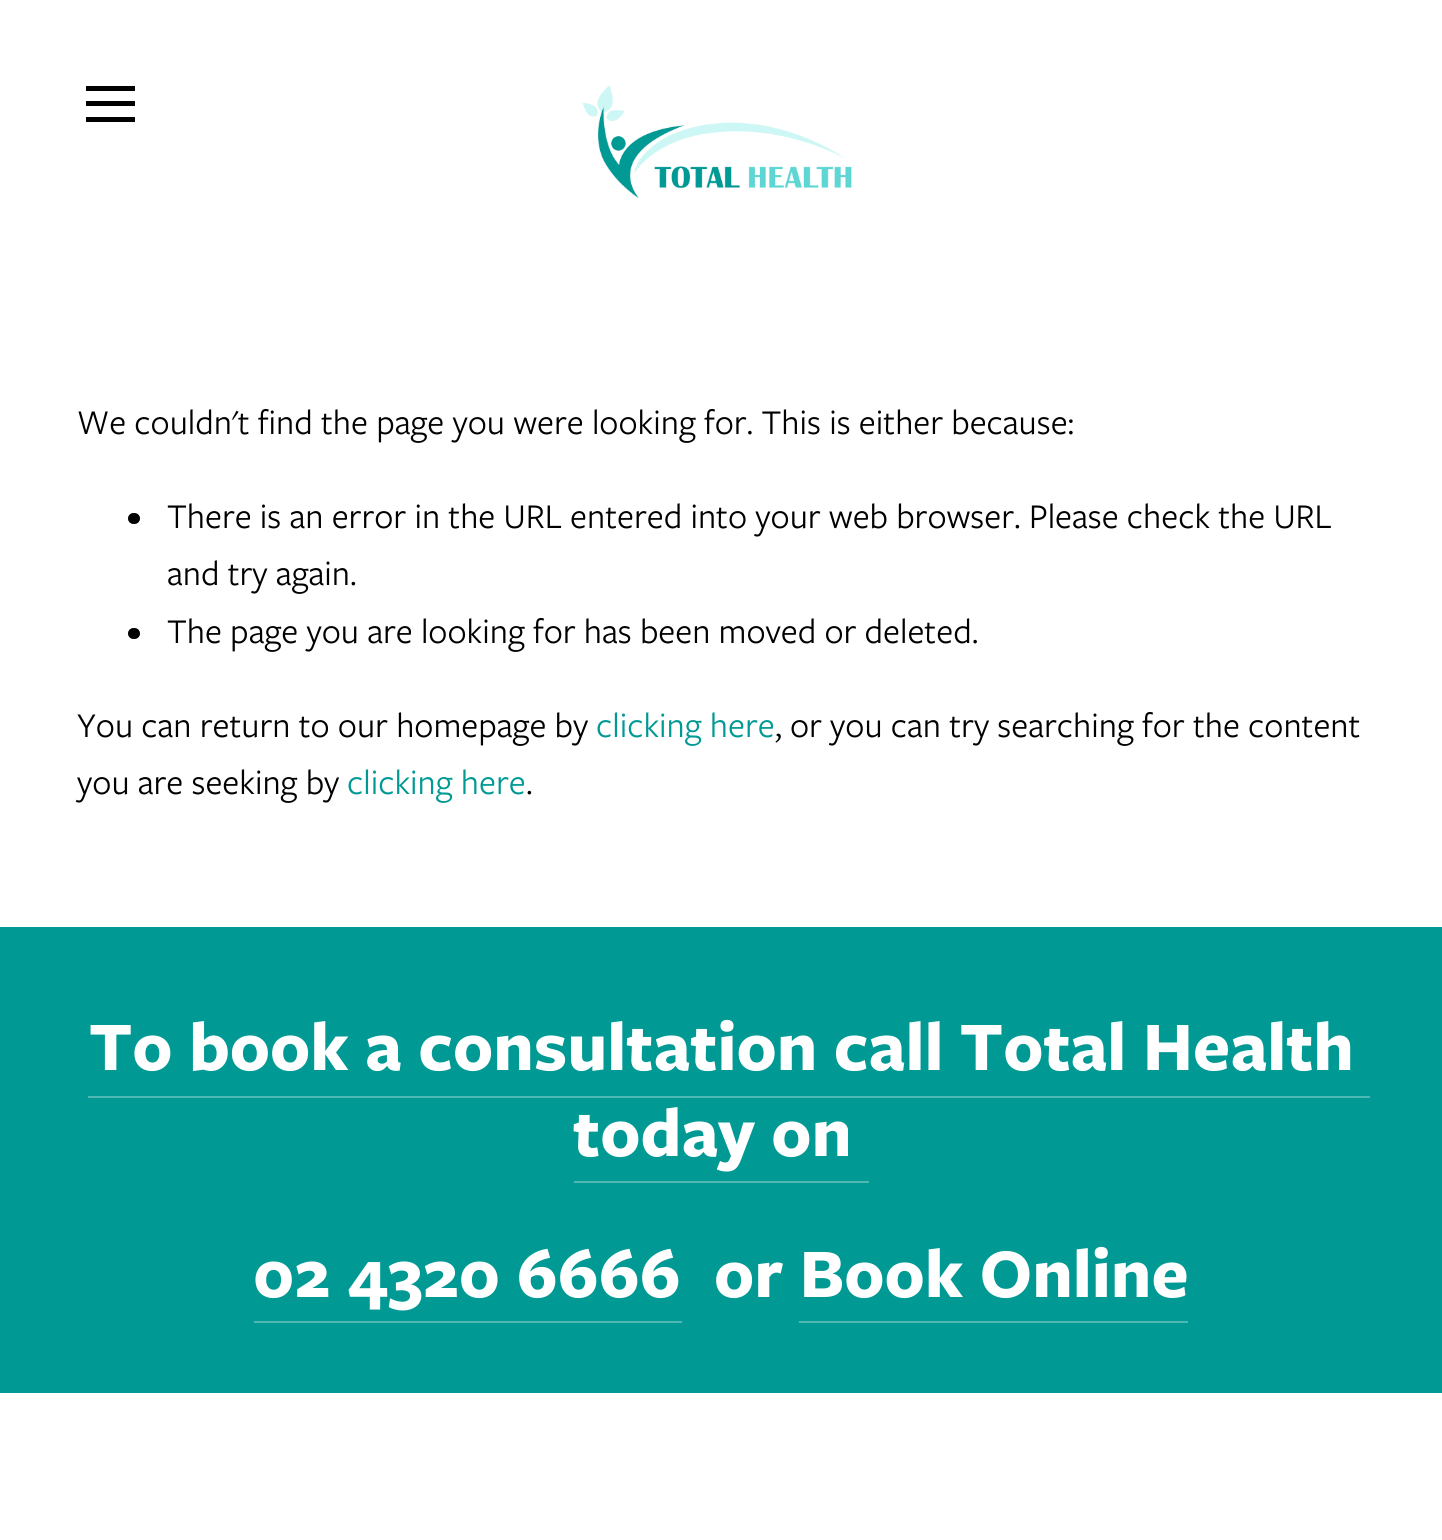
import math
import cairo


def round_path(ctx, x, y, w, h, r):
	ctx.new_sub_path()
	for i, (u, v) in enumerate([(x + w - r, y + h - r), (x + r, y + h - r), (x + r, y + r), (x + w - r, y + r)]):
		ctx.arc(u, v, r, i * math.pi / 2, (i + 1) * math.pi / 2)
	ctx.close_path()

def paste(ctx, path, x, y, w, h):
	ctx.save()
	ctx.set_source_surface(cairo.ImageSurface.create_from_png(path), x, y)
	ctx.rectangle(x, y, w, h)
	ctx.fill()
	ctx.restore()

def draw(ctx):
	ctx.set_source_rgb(1, 1, 1)
	ctx.paint()
	ctx.set_source_rgb(0, 0, 0)
	ctx.rectangle(86, 86, 49, 5)
	ctx.rectangle(86, 101, 49, 5)
	ctx.rectangle(86, 117, 49, 5)
	ctx.fill()
	paste(ctx, 'media/1.png', 582, 85, 270, 113)
	ctx.select_font_face('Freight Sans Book')
	ctx.set_font_size(36)
	ctx.move_to(77, 434)
	ctx.show_text('We couldn\'t find the page you were looking for. This is either because:')
	round_path(ctx, 128, 513, 12, 11, 5.5)
	ctx.fill()
	ctx.move_to(167, 528)
	ctx.show_text('There is an error in the URL entered into your web browser. Please check the URL')
	ctx.move_to(167, 585)
	ctx.show_text('and try again.')
	round_path(ctx, 128, 628, 12, 11, 5.5)
	ctx.fill()
	ctx.move_to(167, 643)
	ctx.show_text('The page you are looking for has been moved or deleted.')
	ctx.move_to(77, 737)
	ctx.show_text('You can return to our homepage by')
	ctx.set_source_rgb(0, 0.6, 0.58)
	ctx.move_to(596, 737)
	ctx.show_text('clicking here')
	ctx.set_source_rgb(0, 0, 0)
	ctx.move_to(775, 737)
	ctx.show_text(', or you can try searching for the content')
	ctx.move_to(77, 794)
	ctx.show_text('you are seeking by')
	ctx.set_source_rgb(0, 0.6, 0.58)
	ctx.move_to(347, 794)
	ctx.show_text('clicking here')
	ctx.set_source_rgb(0, 0, 0)
	ctx.move_to(526, 794)
	ctx.show_text('.')
	ctx.set_source_rgb(0, 0.6, 0.58)
	ctx.rectangle(0, 927, 1442, 466)
	ctx.fill()
	ctx.select_font_face('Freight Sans', cairo.FONT_SLANT_NORMAL, cairo.FONT_WEIGHT_BOLD)
	ctx.set_font_size(72)
	ctx.set_source_rgb(1, 1, 1)
	ctx.move_to(89, 1070)
	ctx.show_text('To book a consultation call Total Health')
	ctx.move_to(573, 1156)
	ctx.show_text('today on')
	ctx.set_source_rgb(0.302, 0.722, 0.706)
	ctx.rectangle(88, 1096, 1282, 2)
	ctx.fill()
	ctx.rectangle(574, 1181, 295, 2)
	ctx.fill()
	ctx.set_source_rgb(1, 1, 1)
	ctx.move_to(253, 1297)
	ctx.show_text('02 4320 6666')
	ctx.set_source_rgb(0.302, 0.722, 0.706)
	ctx.rectangle(254, 1321, 428, 2)
	ctx.fill()
	ctx.set_source_rgb(1, 1, 1)
	ctx.move_to(714, 1297)
	ctx.show_text('or Book Online')
	ctx.set_source_rgb(0.302, 0.722, 0.706)
	ctx.rectangle(799, 1321, 389, 2)
	ctx.fill()


surface = cairo.ImageSurface(cairo.FORMAT_RGB24, 1442, 1540)
ctx = cairo.Context(surface)
options = cairo.FontOptions()
options.set_hint_metrics(cairo.HINT_METRICS_OFF)
options.set_hint_style(cairo.HINT_STYLE_NONE)
ctx.set_font_options(options)
ctx.set_miter_limit(4)
draw(ctx)
surface.write_to_png('image.png')
